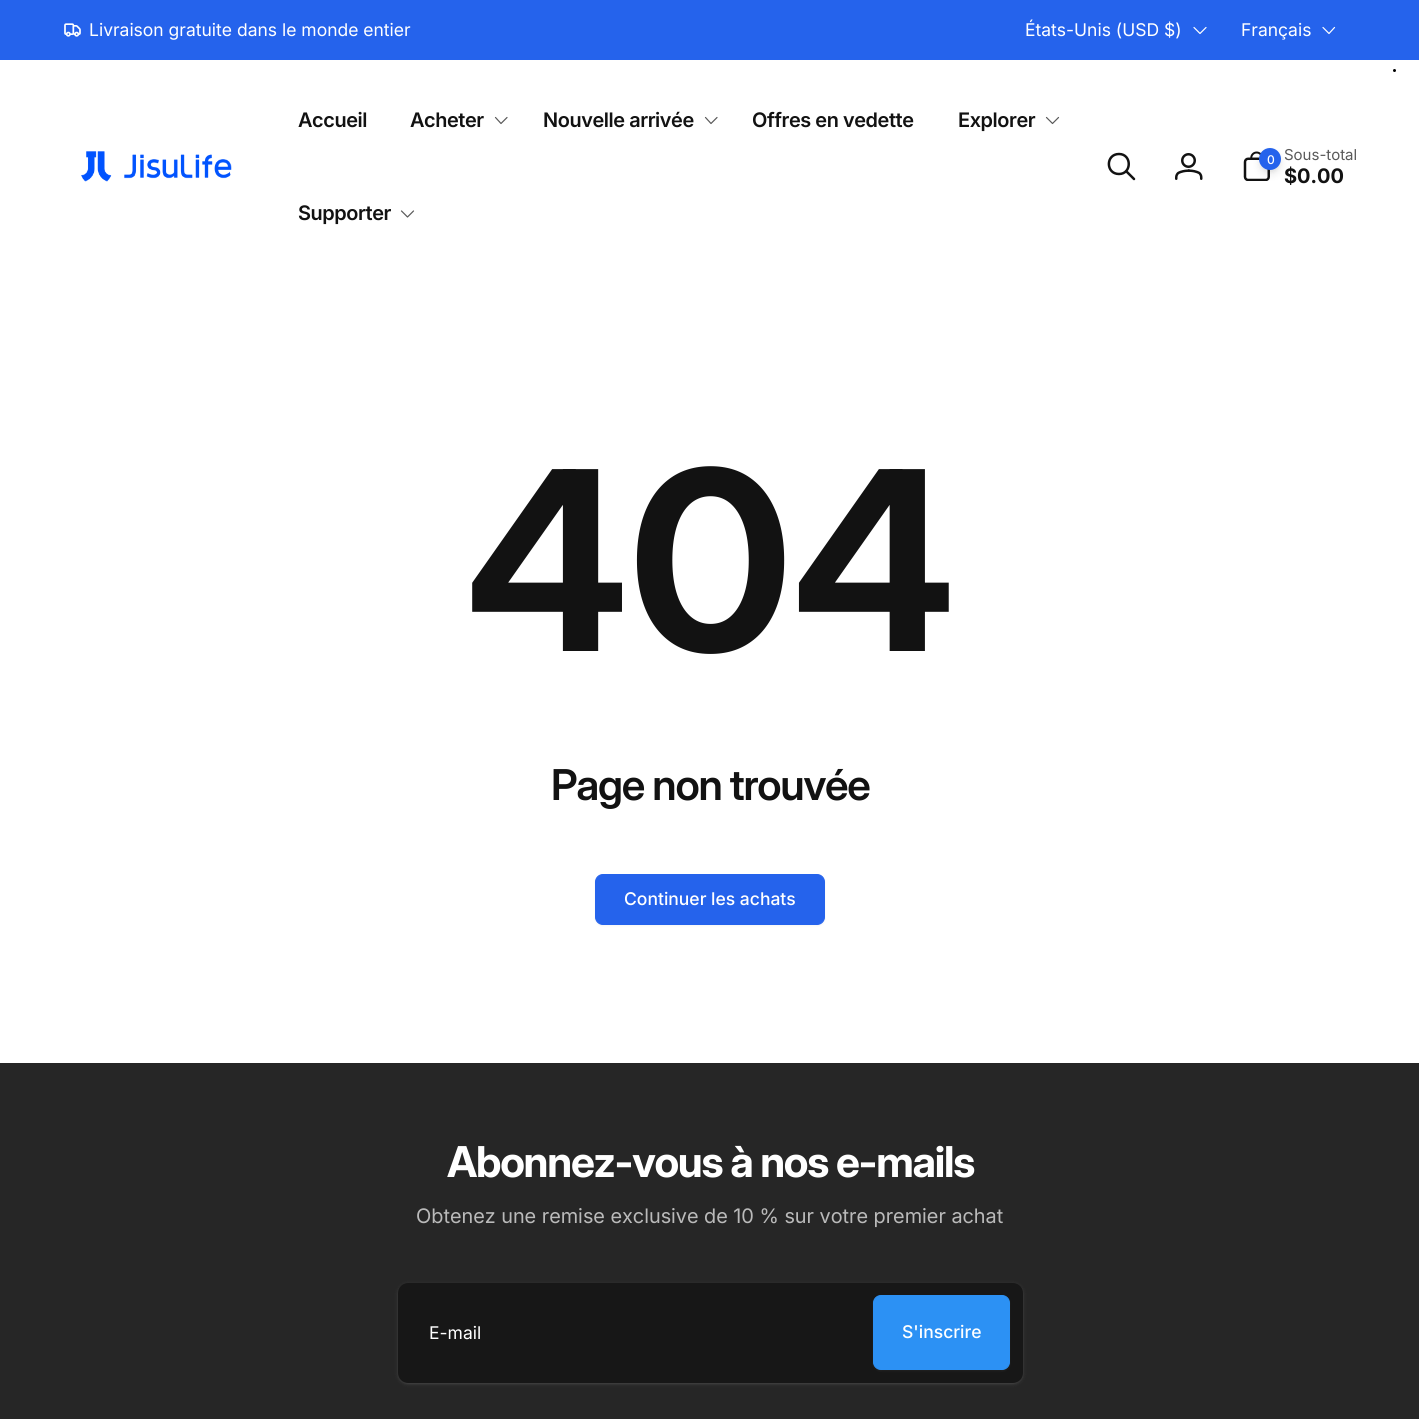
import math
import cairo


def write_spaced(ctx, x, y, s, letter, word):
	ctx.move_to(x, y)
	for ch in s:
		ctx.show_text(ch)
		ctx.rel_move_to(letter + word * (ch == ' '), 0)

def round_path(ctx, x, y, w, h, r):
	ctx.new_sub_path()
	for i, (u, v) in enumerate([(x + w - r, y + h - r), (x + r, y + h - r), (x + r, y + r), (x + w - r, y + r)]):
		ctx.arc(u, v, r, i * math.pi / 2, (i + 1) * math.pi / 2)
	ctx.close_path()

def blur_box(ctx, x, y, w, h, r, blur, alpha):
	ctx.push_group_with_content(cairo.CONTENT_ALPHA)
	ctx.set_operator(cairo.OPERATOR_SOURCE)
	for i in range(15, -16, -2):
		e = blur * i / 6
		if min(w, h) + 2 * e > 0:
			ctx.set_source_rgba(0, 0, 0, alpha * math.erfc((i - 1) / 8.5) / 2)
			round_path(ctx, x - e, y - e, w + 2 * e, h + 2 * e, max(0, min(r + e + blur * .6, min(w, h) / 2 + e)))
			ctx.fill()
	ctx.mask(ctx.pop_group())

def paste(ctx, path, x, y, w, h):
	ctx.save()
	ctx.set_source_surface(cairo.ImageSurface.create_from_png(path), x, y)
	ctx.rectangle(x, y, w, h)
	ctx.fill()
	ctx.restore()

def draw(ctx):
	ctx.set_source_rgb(1, 1, 1)
	ctx.paint()
	ctx.set_source_rgb(0.145, 0.388, 0.922)
	ctx.rectangle(0, 0, 1419, 60)
	ctx.fill()
	paste(ctx, 'media/1.png', 64, 23, 17, 14)
	ctx.select_font_face('Inter')
	ctx.set_font_size(17.5)
	ctx.set_source_rgb(1, 1, 1)
	ctx.move_to(89, 36)
	ctx.show_text('Livraison gratuite dans le monde entier')
	ctx.move_to(1025, 36)
	ctx.show_text('États-Unis (USD $)')
	ctx.new_path()
	ctx.move_to(1206, 27.5)
	ctx.line_to(1200, 33.5)
	ctx.line_to(1194, 27.5)
	ctx.set_line_width(1.2)
	ctx.set_line_cap(cairo.LINE_CAP_ROUND)
	ctx.set_line_join(cairo.LINE_JOIN_ROUND)
	ctx.stroke()
	ctx.move_to(1241, 36)
	ctx.show_text('Français')
	ctx.new_path()
	ctx.move_to(1334.5, 27.5)
	ctx.line_to(1329, 33.5)
	ctx.line_to(1323, 27.5)
	ctx.stroke()
	paste(ctx, 'media/2.png', 81, 151, 151, 31)
	ctx.select_font_face('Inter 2 SemiBold')
	ctx.set_font_size(20)
	ctx.set_source_rgb(0.071, 0.071, 0.071)
	write_spaced(ctx, 298, 127, 'Accueil', -0.4, 0)
	write_spaced(ctx, 410, 127, 'Acheter', -0.4, 0)
	ctx.new_path()
	ctx.move_to(507, 117.5)
	ctx.line_to(501, 123.5)
	ctx.line_to(495.5, 117.5)
	ctx.set_source_rgb(0.349, 0.349, 0.349)
	ctx.stroke()
	ctx.set_source_rgb(0.071, 0.071, 0.071)
	write_spaced(ctx, 543, 127, 'Nouvelle arrivée', -0.4, 0)
	ctx.new_path()
	ctx.move_to(717, 117.5)
	ctx.line_to(711, 123.5)
	ctx.line_to(705.5, 117.5)
	ctx.set_source_rgb(0.349, 0.349, 0.349)
	ctx.stroke()
	ctx.set_source_rgb(0.071, 0.071, 0.071)
	write_spaced(ctx, 752, 127, 'Offres en vedette', -0.4, 0)
	write_spaced(ctx, 958, 127, 'Explorer', -0.4, 0)
	ctx.new_path()
	ctx.move_to(1058.5, 117.5)
	ctx.line_to(1052.5, 123.5)
	ctx.line_to(1046.5, 117.5)
	ctx.set_source_rgb(0.349, 0.349, 0.349)
	ctx.stroke()
	ctx.set_source_rgb(0.071, 0.071, 0.071)
	write_spaced(ctx, 298, 220, 'Supporter', -0.4, 0)
	ctx.new_path()
	ctx.move_to(413.5, 211)
	ctx.line_to(407.5, 217)
	ctx.line_to(401.5, 211)
	ctx.set_source_rgb(0.349, 0.349, 0.349)
	ctx.stroke()
	ctx.new_path()
	ctx.move_to(1134, 179)
	ctx.line_to(1126, 171)
	ctx.move_to(1119, 174)
	ctx.curve_to(1132, 174, 1132, 154, 1119, 154)
	ctx.curve_to(1105.5, 154, 1105.5, 174, 1119, 174)
	ctx.close_path()
	ctx.set_source_rgb(0.071, 0.071, 0.071)
	ctx.set_line_width(2.5)
	ctx.stroke()
	paste(ctx, 'media/3.png', 1175, 153, 28, 27)
	paste(ctx, 'media/4.png', 1243, 151, 27, 30)
	ctx.set_source_rgb(0.071, 0.071, 0.071)
	blur_box(ctx, 1260, 151, 20, 20, 10, 2.5, 0.06)
	blur_box(ctx, 1260, 154, 20, 20, 10, 4, 0.1)
	ctx.set_source_rgb(0.145, 0.388, 0.922)
	ctx.arc(1270, 159, 11, 0, 2 * math.pi)
	ctx.fill()
	ctx.select_font_face('Inter Medium')
	ctx.set_font_size(12)
	ctx.set_source_rgb(1, 1, 1)
	ctx.move_to(1267, 164)
	ctx.show_text('0')
	ctx.select_font_face('Inter')
	ctx.set_font_size(15)
	ctx.set_source_rgb(0.349, 0.349, 0.349)
	ctx.move_to(1284, 160)
	ctx.show_text('Sous-total')
	ctx.select_font_face('Inter 2', cairo.FONT_SLANT_NORMAL, cairo.FONT_WEIGHT_BOLD)
	ctx.set_font_size(20)
	ctx.set_source_rgb(0.071, 0.071, 0.071)
	ctx.move_to(1284, 183)
	ctx.show_text('$0.00')
	ctx.set_source_rgb(0, 0, 0)
	ctx.new_path()
	ctx.arc(1394.5, 70.5, 1.5, 0, 2 * math.pi)
	ctx.fill()
	ctx.select_font_face('Inter', cairo.FONT_SLANT_NORMAL, cairo.FONT_WEIGHT_BOLD)
	ctx.set_font_size(250)
	ctx.set_source_rgb(0.071, 0.071, 0.071)
	ctx.move_to(465, 651)
	ctx.show_text('404')
	ctx.select_font_face('Inter SemiBold')
	ctx.set_font_size(42.5)
	write_spaced(ctx, 551, 800, 'Page non trouvée', -1.25, 0)
	ctx.set_source_rgb(0.071, 0.071, 0.071)
	blur_box(ctx, 595, 875, 230, 51, 8, 1, 0.05)
	ctx.set_source_rgb(0.145, 0.388, 0.922)
	round_path(ctx, 595.5, 874.5, 229, 50, 7.5)
	ctx.fill_preserve()
	ctx.set_line_width(1)
	ctx.set_line_cap(cairo.LINE_CAP_BUTT)
	ctx.set_line_join(cairo.LINE_JOIN_MITER)
	ctx.stroke()
	ctx.select_font_face('Inter Medium')
	ctx.set_font_size(17.5)
	ctx.set_source_rgb(1, 1, 1)
	ctx.move_to(624, 905)
	ctx.show_text('Continuer les achats')
	ctx.set_source_rgb(0.149, 0.149, 0.149)
	ctx.rectangle(0, 1063, 1419, 356)
	ctx.fill()
	ctx.select_font_face('Inter', cairo.FONT_SLANT_NORMAL, cairo.FONT_WEIGHT_BOLD)
	ctx.set_font_size(42.5)
	ctx.set_source_rgb(1, 1, 1)
	write_spaced(ctx, 447, 1177, 'Abonnez-vous à nos e-mails', -1.25, 0)
	ctx.select_font_face('Inter 2')
	ctx.set_font_size(20)
	ctx.set_source_rgb(0.729, 0.729, 0.729)
	ctx.move_to(416, 1223)
	ctx.show_text('Obtenez une remise exclusive de 10 % sur votre premier achat')
	ctx.set_source_rgb(0.98, 0.98, 0.98)
	blur_box(ctx, 398, 1284, 625, 100, 10, 2, 0.1)
	blur_box(ctx, 398, 1284, 625, 100, 10, 1, 0.06)
	ctx.set_source_rgb(0.09, 0.09, 0.09)
	round_path(ctx, 398, 1283, 625, 100, 10)
	ctx.fill()
	ctx.select_font_face('Inter')
	ctx.set_font_size(17.5)
	ctx.set_source_rgb(1, 1, 1)
	ctx.move_to(429, 1339)
	ctx.show_text('E-mail')
	ctx.set_source_rgb(0.98, 0.98, 0.98)
	blur_box(ctx, 873, 1296, 137, 75, 8, 1, 0.05)
	ctx.set_source_rgb(0.173, 0.569, 0.957)
	round_path(ctx, 873.5, 1295.5, 136, 74, 7.5)
	ctx.fill_preserve()
	ctx.stroke()
	ctx.select_font_face('Inter Medium')
	ctx.set_source_rgb(1, 1, 1)
	ctx.move_to(902, 1338)
	ctx.show_text('S\'inscrire')


surface = cairo.ImageSurface(cairo.FORMAT_RGB24, 1419, 1419)
ctx = cairo.Context(surface)
options = cairo.FontOptions()
options.set_hint_metrics(cairo.HINT_METRICS_OFF)
options.set_hint_style(cairo.HINT_STYLE_NONE)
ctx.set_font_options(options)
ctx.set_miter_limit(4)
draw(ctx)
surface.write_to_png('image.png')
